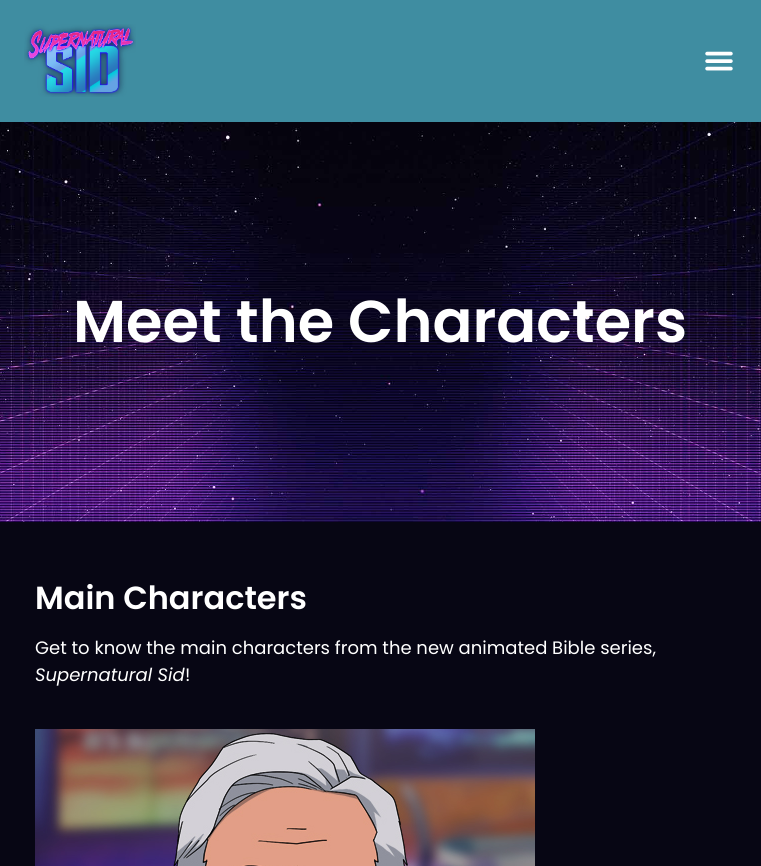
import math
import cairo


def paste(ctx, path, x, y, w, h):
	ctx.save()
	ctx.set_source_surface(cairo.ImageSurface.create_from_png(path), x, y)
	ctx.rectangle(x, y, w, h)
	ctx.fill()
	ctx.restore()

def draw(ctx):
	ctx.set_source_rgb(0.031, 0.024, 0.082)
	ctx.paint()
	ctx.set_source_rgb(0.247, 0.553, 0.631)
	ctx.rectangle(0, 0, 761, 122)
	ctx.fill()
	paste(ctx, 'media/1.png', 24, 24, 112, 73)
	paste(ctx, 'media/2.png', 705, 51, 28, 20)
	paste(ctx, 'media/3.png', 0, 122, 761, 400)
	ctx.select_font_face('Poppins SemiBold')
	ctx.set_font_size(59)
	ctx.set_source_rgb(1, 1, 1)
	ctx.move_to(73, 342)
	ctx.show_text('Meet the Characters')
	ctx.set_font_size(32)
	ctx.move_to(35, 609)
	ctx.show_text('Main Characters')
	ctx.select_font_face('Poppins')
	ctx.set_font_size(18)
	ctx.move_to(35, 654)
	ctx.show_text('Get to know the main characters from the new animated Bible series,')
	ctx.select_font_face('Poppins', cairo.FONT_SLANT_ITALIC)
	ctx.move_to(35, 681)
	ctx.show_text('Supernatural Sid')
	ctx.select_font_face('Poppins')
	ctx.move_to(185, 681)
	ctx.show_text('!')
	paste(ctx, 'media/4.png', 35, 729, 500, 137)


surface = cairo.ImageSurface(cairo.FORMAT_RGB24, 761, 866)
ctx = cairo.Context(surface)
options = cairo.FontOptions()
options.set_hint_metrics(cairo.HINT_METRICS_OFF)
options.set_hint_style(cairo.HINT_STYLE_NONE)
ctx.set_font_options(options)
ctx.set_miter_limit(4)
draw(ctx)
surface.write_to_png('image.png')
